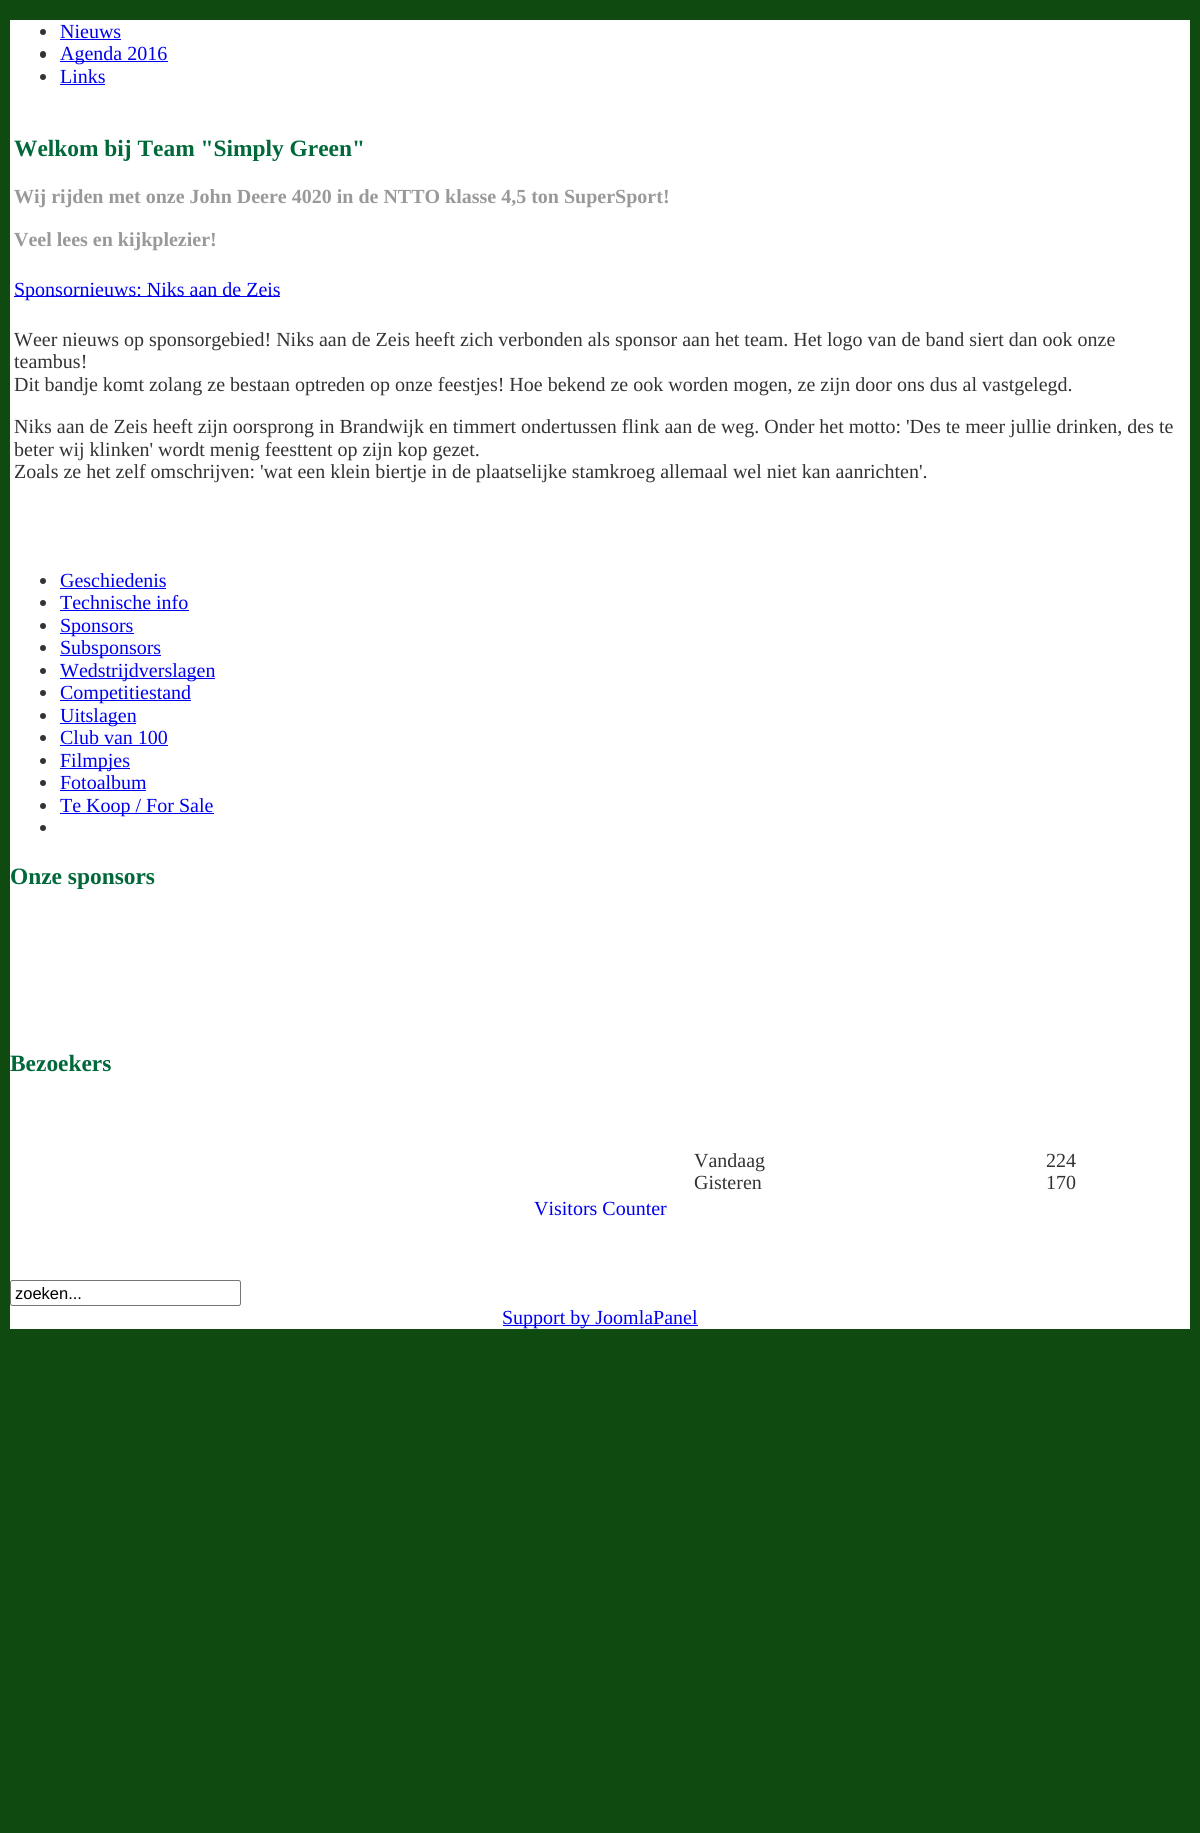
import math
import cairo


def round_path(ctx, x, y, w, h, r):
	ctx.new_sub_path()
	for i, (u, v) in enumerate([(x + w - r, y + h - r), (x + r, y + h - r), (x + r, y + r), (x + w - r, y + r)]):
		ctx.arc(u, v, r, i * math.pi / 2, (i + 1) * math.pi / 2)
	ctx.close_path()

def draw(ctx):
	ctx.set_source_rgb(0.059, 0.294, 0.067)
	ctx.paint()
	ctx.set_source_rgb(1, 1, 1)
	ctx.rectangle(10, 20, 1180, 1309)
	ctx.fill()
	ctx.set_source_rgb(0.2, 0.2, 0.2)
	ctx.arc(43, 32, 3, 0, 2 * math.pi)
	ctx.fill()
	ctx.select_font_face('Liberation Serif')
	ctx.set_font_size(20)
	ctx.set_source_rgb(0, 0, 0.933)
	ctx.move_to(60, 38)
	ctx.show_text('Nieuws')
	ctx.rectangle(60, 39, 61, 1)
	ctx.fill()
	ctx.set_source_rgb(0.2, 0.2, 0.2)
	round_path(ctx, 40, 51, 6, 7, 3)
	ctx.fill()
	ctx.set_source_rgb(0, 0, 0.933)
	ctx.rectangle(60, 61, 108, 1)
	ctx.fill()
	ctx.move_to(60, 60)
	ctx.show_text('Agenda 2016')
	ctx.set_source_rgb(0.2, 0.2, 0.2)
	ctx.new_path()
	ctx.arc(43, 77, 3, 0, 2 * math.pi)
	ctx.fill()
	ctx.set_source_rgb(0, 0, 0.933)
	ctx.move_to(60, 83)
	ctx.show_text('Links')
	ctx.rectangle(60, 84, 45, 1)
	ctx.fill()
	ctx.select_font_face('Liberation Serif', cairo.FONT_SLANT_NORMAL, cairo.FONT_WEIGHT_BOLD)
	ctx.set_font_size(23.4)
	ctx.set_source_rgb(0, 0.408, 0.224)
	ctx.move_to(14, 156)
	ctx.show_text('Welkom bij Team "Simply Green"')
	ctx.set_font_size(20)
	ctx.set_source_rgb(0.6, 0.6, 0.6)
	ctx.move_to(14, 203)
	ctx.show_text('Wij rijden met onze John Deere 4020 in de NTTO klasse 4,5 ton SuperSport!')
	ctx.move_to(14, 246)
	ctx.show_text('Veel lees en kijkplezier!')
	ctx.set_source_rgb(0, 0, 0.933)
	ctx.rectangle(14, 296, 266, 1)
	ctx.fill()
	ctx.select_font_face('Liberation Serif')
	ctx.move_to(14, 296)
	ctx.show_text('Sponsornieuws: Niks aan de Zeis')
	ctx.set_source_rgb(0.2, 0.2, 0.2)
	for x, y, s in [
		(14, 346, 'Weer nieuws op sponsorgebied! Niks aan de Zeis heeft zich verbonden als sponsor aan het team. Het logo van de band siert dan ook onze'),
		(14, 368, 'teambus!'),
		(14, 391, 'Dit bandje komt zolang ze bestaan optreden op onze feestjes! Hoe bekend ze ook worden mogen, ze zijn door ons dus al vastgelegd.'),
		(14, 433, 'Niks aan de Zeis heeft zijn oorsprong in Brandwijk en timmert ondertussen flink aan de weg. Onder het motto: \'Des te meer jullie drinken, des te'),
		(14, 456, 'beter wij klinken\' wordt menig feesttent op zijn kop gezet.'),
		(14, 478, 'Zoals ze het zelf omschrijven: \'wat een klein biertje in de plaatselijke stamkroeg allemaal wel niet kan aanrichten\'.'),
	]:
		ctx.move_to(x, y)
		ctx.show_text(s)
	ctx.new_path()
	ctx.arc(43, 581, 3, 0, 2 * math.pi)
	ctx.fill()
	ctx.set_source_rgb(0, 0, 0.933)
	ctx.move_to(60, 587)
	ctx.show_text('Geschiedenis')
	ctx.rectangle(60, 588, 106, 1)
	ctx.fill()
	ctx.set_source_rgb(0.2, 0.2, 0.2)
	ctx.arc(43, 603, 3, 0, 2 * math.pi)
	ctx.fill()
	ctx.set_source_rgb(0, 0, 0.933)
	ctx.move_to(60, 609)
	ctx.show_text('Technische info')
	ctx.rectangle(60, 610, 129, 1)
	ctx.fill()
	ctx.set_source_rgb(0.2, 0.2, 0.2)
	ctx.arc(43, 626, 3, 0, 2 * math.pi)
	ctx.fill()
	ctx.set_source_rgb(0, 0, 0.933)
	ctx.rectangle(60, 633, 74, 1)
	ctx.fill()
	ctx.move_to(60, 632)
	ctx.show_text('Sponsors')
	ctx.set_source_rgb(0.2, 0.2, 0.2)
	ctx.new_path()
	ctx.arc(43, 648, 3, 0, 2 * math.pi)
	ctx.fill()
	ctx.set_source_rgb(0, 0, 0.933)
	ctx.rectangle(60, 655, 101, 1)
	ctx.fill()
	ctx.move_to(60, 654)
	ctx.show_text('Subsponsors')
	ctx.set_source_rgb(0.2, 0.2, 0.2)
	ctx.new_path()
	ctx.arc(43, 671, 3, 0, 2 * math.pi)
	ctx.fill()
	ctx.set_source_rgb(0, 0, 0.933)
	ctx.rectangle(60, 678, 155, 1)
	ctx.fill()
	ctx.move_to(60, 677)
	ctx.show_text('Wedstrijdverslagen')
	ctx.set_source_rgb(0.2, 0.2, 0.2)
	ctx.new_path()
	ctx.arc(43, 693, 3, 0, 2 * math.pi)
	ctx.fill()
	ctx.set_source_rgb(0, 0, 0.933)
	ctx.rectangle(60, 700, 131, 1)
	ctx.fill()
	ctx.move_to(60, 699)
	ctx.show_text('Competitiestand')
	ctx.set_source_rgb(0.2, 0.2, 0.2)
	ctx.new_path()
	ctx.arc(43, 716, 3, 0, 2 * math.pi)
	ctx.fill()
	ctx.set_source_rgb(0, 0, 0.933)
	ctx.rectangle(60, 723, 76, 1)
	ctx.fill()
	ctx.move_to(60, 722)
	ctx.show_text('Uitslagen')
	ctx.set_source_rgb(0.2, 0.2, 0.2)
	ctx.new_path()
	ctx.arc(43, 738, 3, 0, 2 * math.pi)
	ctx.fill()
	ctx.set_source_rgb(0, 0, 0.933)
	ctx.move_to(60, 744)
	ctx.show_text('Club van 100')
	ctx.rectangle(60, 745, 108, 1)
	ctx.fill()
	ctx.set_source_rgb(0.2, 0.2, 0.2)
	ctx.arc(43, 761, 3, 0, 2 * math.pi)
	ctx.fill()
	ctx.set_source_rgb(0, 0, 0.933)
	ctx.rectangle(60, 768, 70, 1)
	ctx.fill()
	ctx.move_to(60, 767)
	ctx.show_text('Filmpjes')
	ctx.set_source_rgb(0.2, 0.2, 0.2)
	ctx.new_path()
	ctx.arc(43, 783, 3, 0, 2 * math.pi)
	ctx.fill()
	ctx.set_source_rgb(0, 0, 0.933)
	ctx.move_to(60, 789)
	ctx.show_text('Fotoalbum')
	ctx.rectangle(60, 790, 86, 1)
	ctx.fill()
	ctx.set_source_rgb(0.2, 0.2, 0.2)
	ctx.arc(43, 806, 3, 0, 2 * math.pi)
	ctx.fill()
	ctx.set_source_rgb(0, 0, 0.933)
	ctx.rectangle(60, 813, 154, 1)
	ctx.fill()
	ctx.move_to(60, 812)
	ctx.show_text('Te Koop / For Sale')
	ctx.set_source_rgb(0.2, 0.2, 0.2)
	ctx.new_path()
	ctx.arc(43, 828, 3, 0, 2 * math.pi)
	ctx.fill()
	ctx.select_font_face('Liberation Serif', cairo.FONT_SLANT_NORMAL, cairo.FONT_WEIGHT_BOLD)
	ctx.set_font_size(23.4)
	ctx.set_source_rgb(0, 0.408, 0.224)
	ctx.move_to(10, 884)
	ctx.show_text('Onze sponsors')
	ctx.move_to(10, 1071)
	ctx.show_text('Bezoekers')
	ctx.select_font_face('Liberation Serif')
	ctx.set_font_size(20)
	ctx.set_source_rgb(0.2, 0.2, 0.2)
	for x, y, s in [
		(694, 1167, 'Vandaag'),
		(1046, 1167, '224'),
		(694, 1189, 'Gisteren'),
		(1046, 1189, '170'),
	]:
		ctx.move_to(x, y)
		ctx.show_text(s)
	ctx.set_source_rgb(0, 0, 0.933)
	ctx.move_to(534, 1215)
	ctx.show_text('Visitors Counter')
	round_path(ctx, 10.5, 1280.5, 230, 25, 2)
	ctx.set_source_rgb(0.463, 0.463, 0.463)
	ctx.set_line_width(1)
	ctx.stroke()
	ctx.select_font_face('Liberation Sans')
	ctx.set_font_size(16.5)
	ctx.set_source_rgb(0, 0, 0)
	ctx.move_to(15, 1299)
	ctx.show_text('zoeken...')
	ctx.set_source_rgb(0, 0, 0.933)
	ctx.rectangle(503, 1325, 195, 1)
	ctx.fill()
	ctx.select_font_face('Liberation Serif')
	ctx.set_font_size(20)
	ctx.move_to(502, 1324)
	ctx.show_text('Support by JoomlaPanel')


surface = cairo.ImageSurface(cairo.FORMAT_RGB24, 1200, 1833)
ctx = cairo.Context(surface)
options = cairo.FontOptions()
options.set_hint_metrics(cairo.HINT_METRICS_OFF)
options.set_hint_style(cairo.HINT_STYLE_NONE)
ctx.set_font_options(options)
ctx.set_miter_limit(4)
draw(ctx)
surface.write_to_png('image.png')
